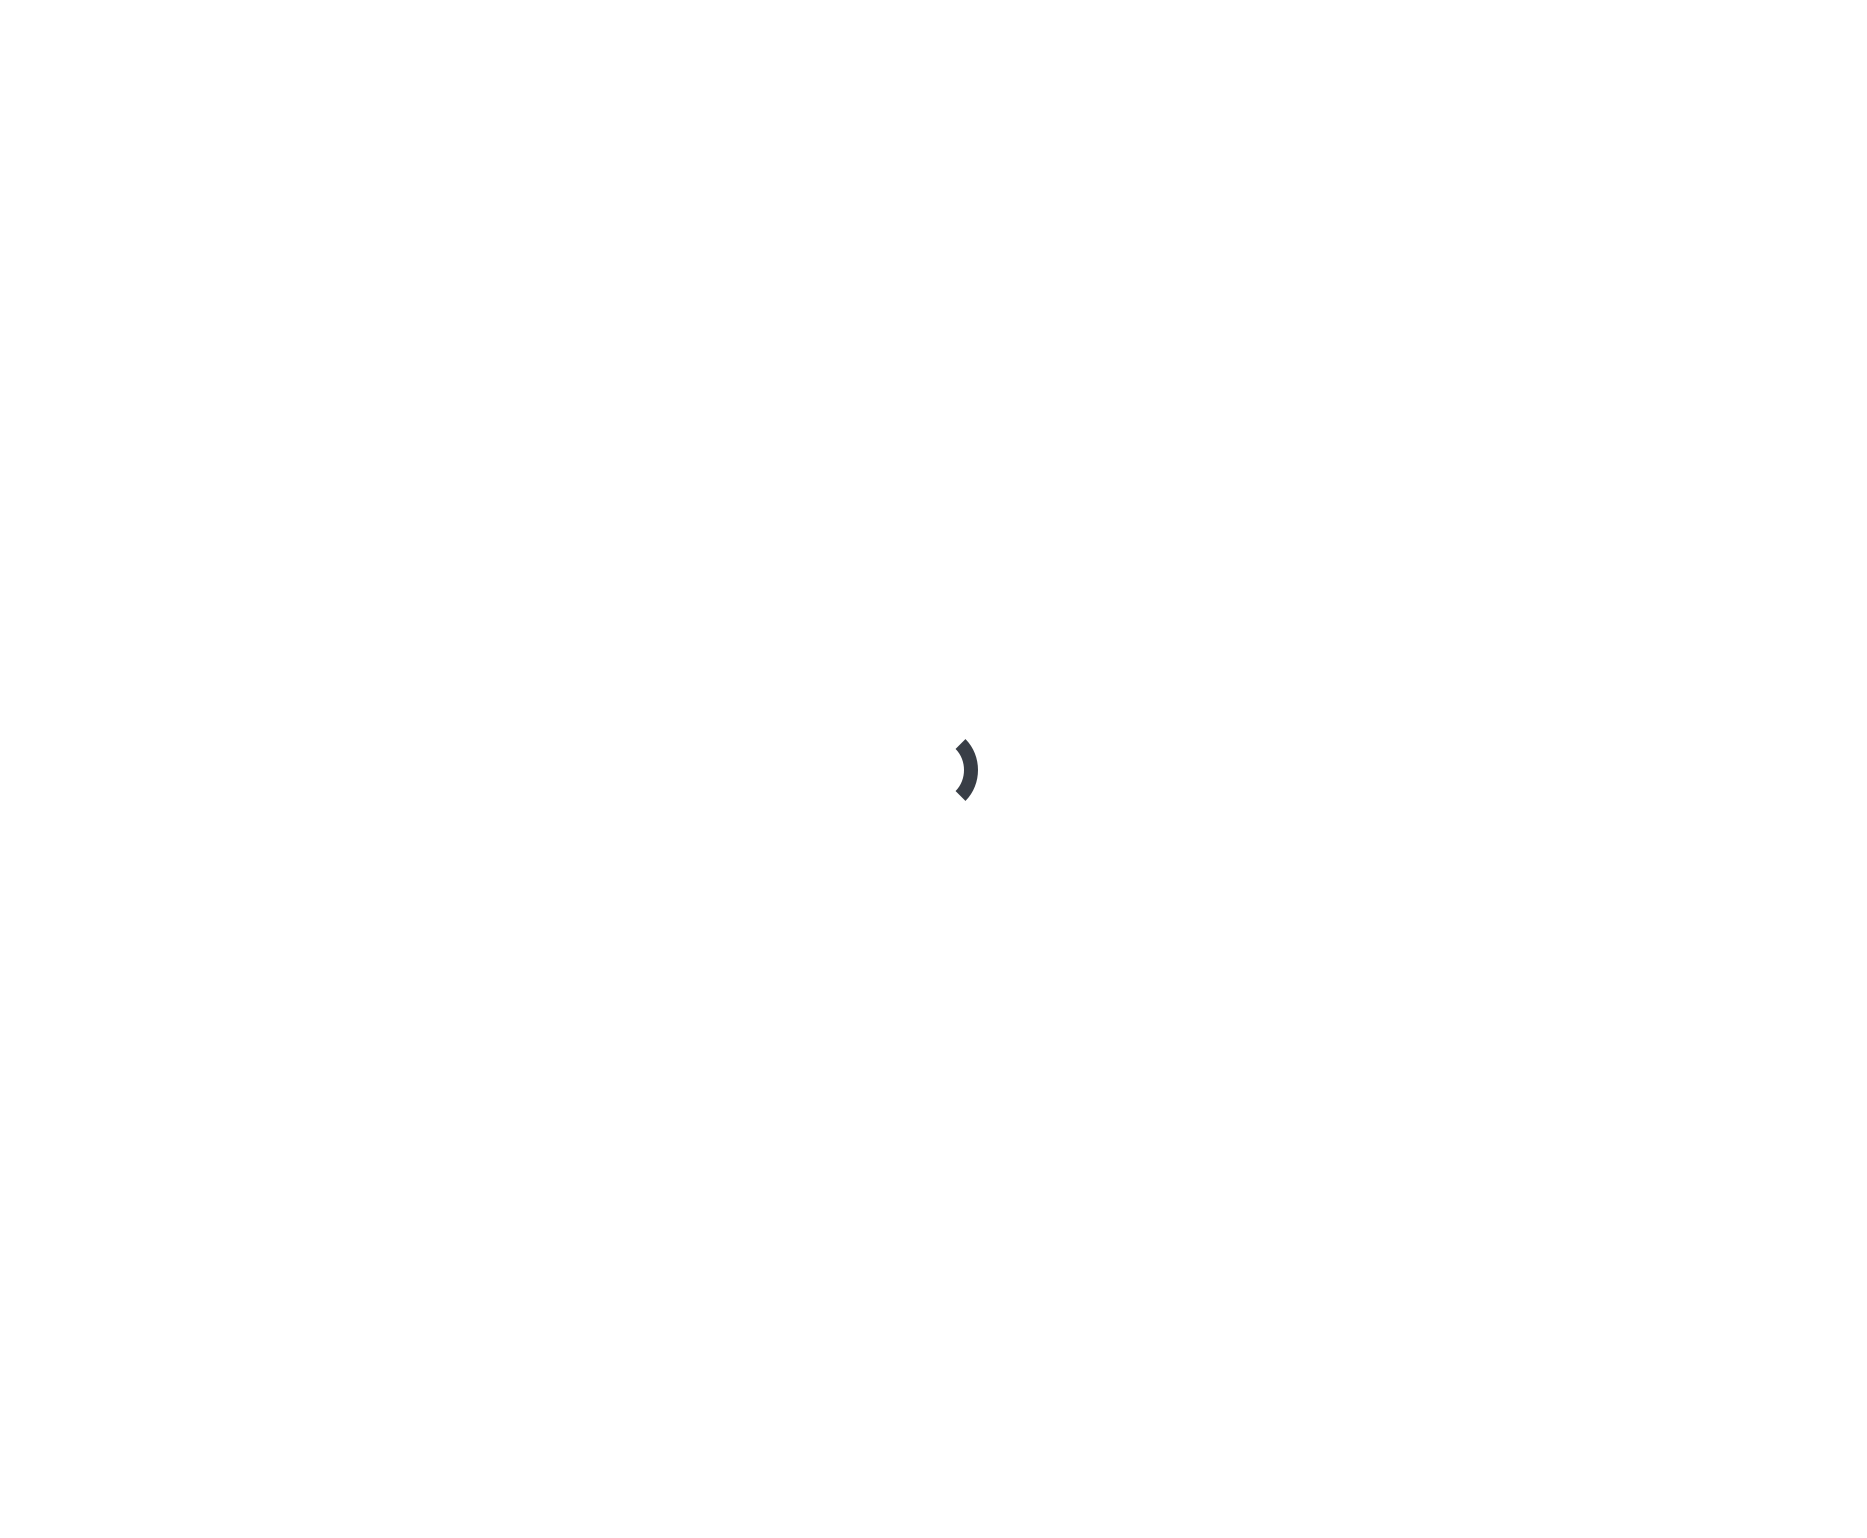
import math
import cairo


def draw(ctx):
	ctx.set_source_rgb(1, 1, 1)
	ctx.paint()
	ctx.new_path()
	ctx.move_to(960.5, 744)
	ctx.curve_to(974.5, 758, 974.5, 782, 960.5, 796)
	ctx.move_to(960.5, 744)
	ctx.curve_to(974.5, 758, 974.5, 782, 960.5, 796)
	ctx.move_to(960.5, 744)
	ctx.curve_to(974.5, 758, 974.5, 782, 960.5, 796)
	ctx.set_source_rgb(0.224, 0.243, 0.275)
	ctx.set_line_width(14)
	ctx.stroke()


surface = cairo.ImageSurface(cairo.FORMAT_RGB24, 1867, 1538)
ctx = cairo.Context(surface)
options = cairo.FontOptions()
options.set_hint_metrics(cairo.HINT_METRICS_OFF)
options.set_hint_style(cairo.HINT_STYLE_NONE)
ctx.set_font_options(options)
ctx.set_miter_limit(4)
draw(ctx)
surface.write_to_png('image.png')
